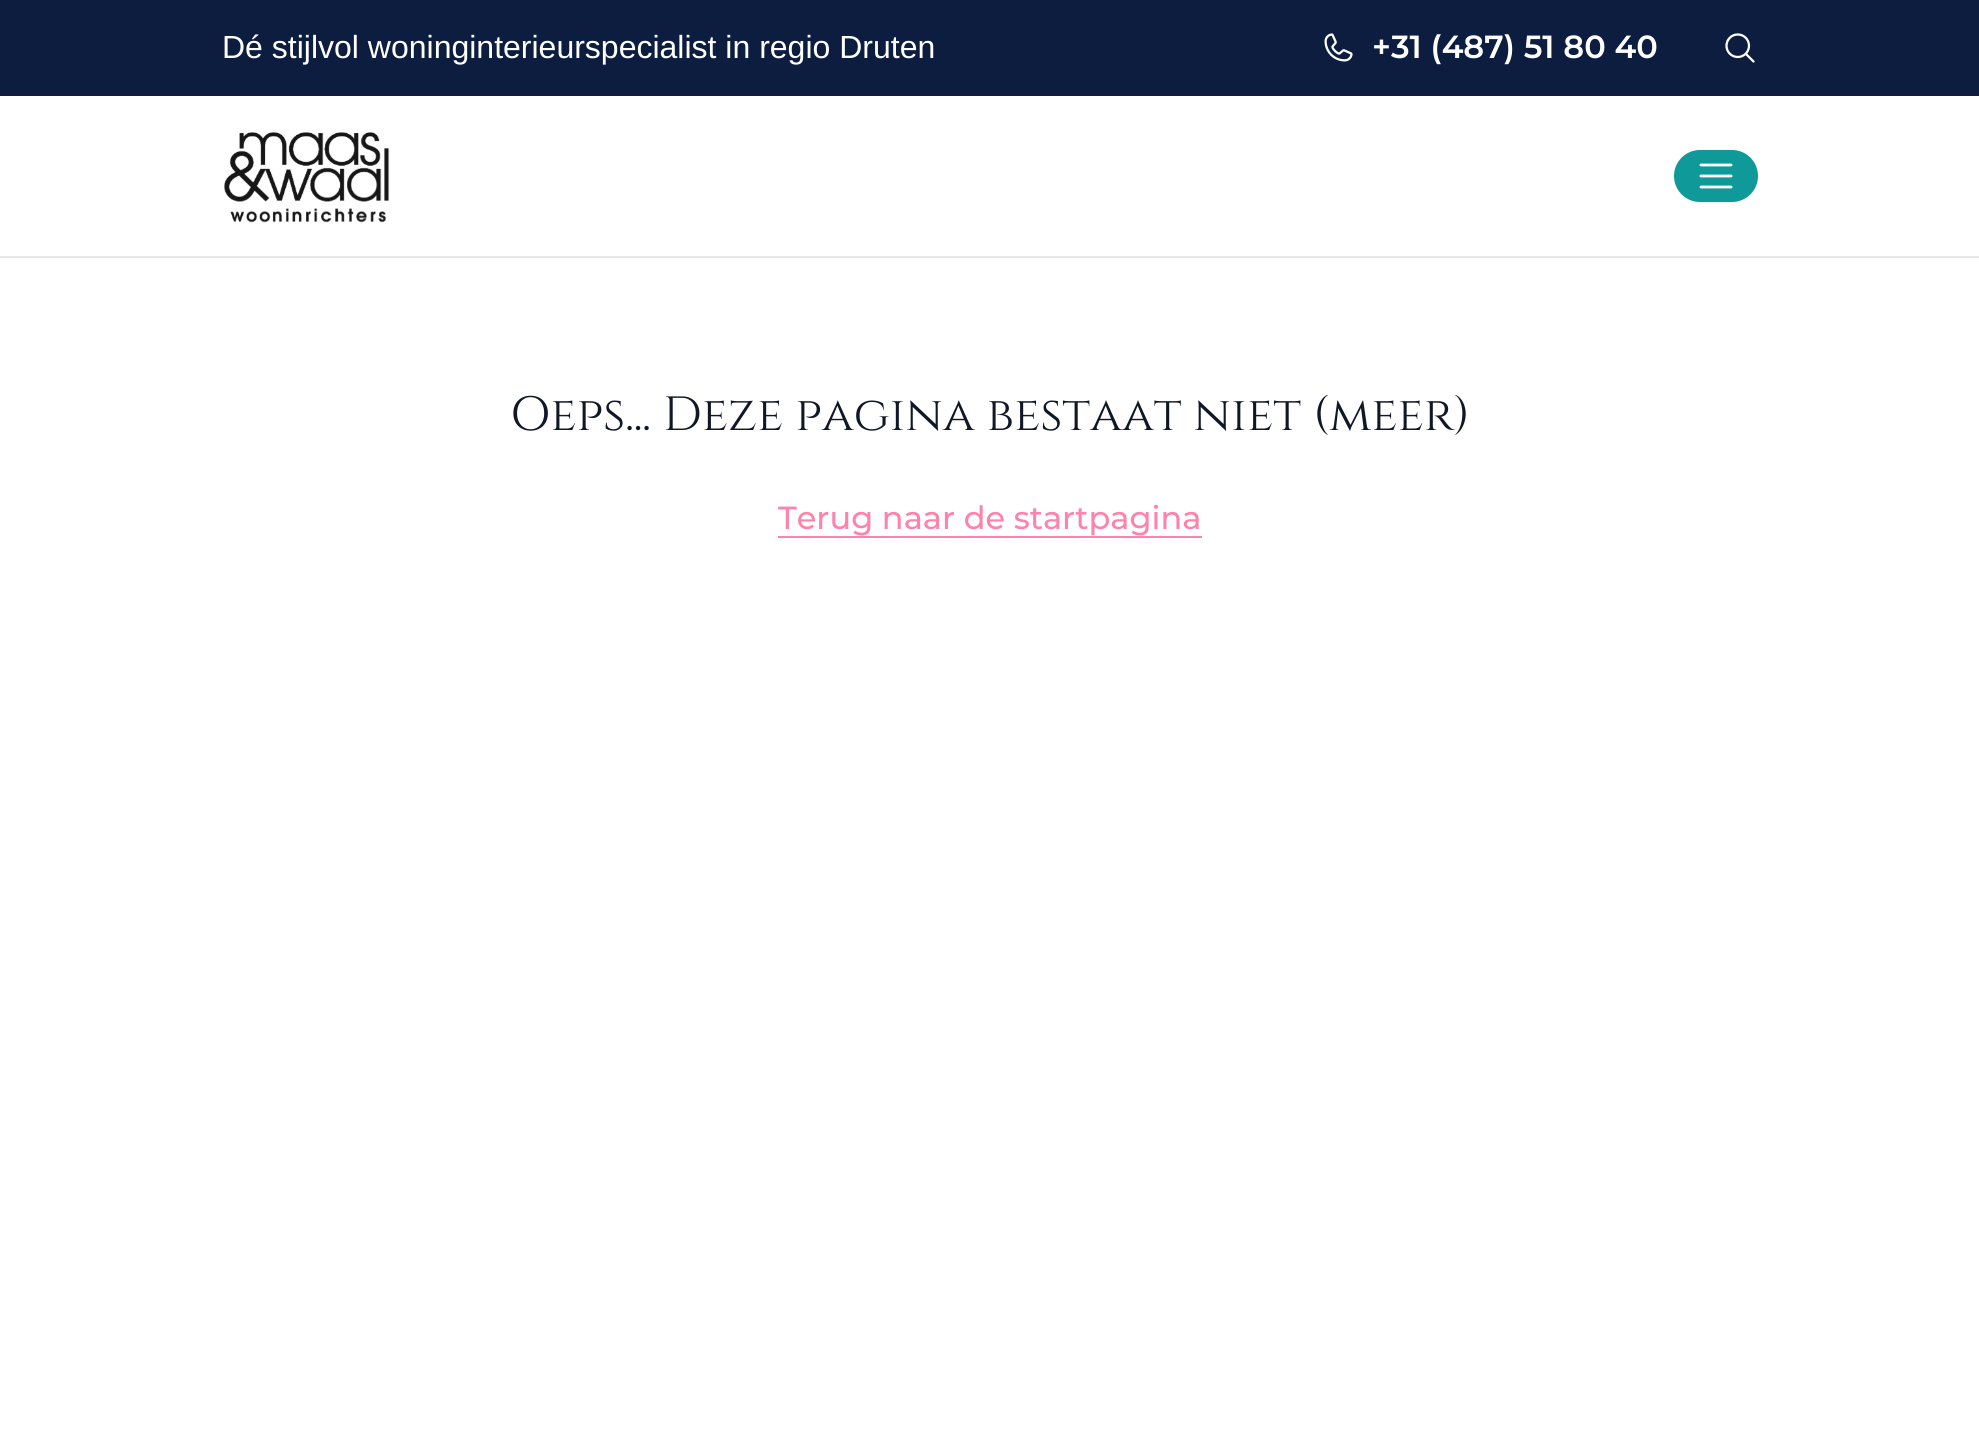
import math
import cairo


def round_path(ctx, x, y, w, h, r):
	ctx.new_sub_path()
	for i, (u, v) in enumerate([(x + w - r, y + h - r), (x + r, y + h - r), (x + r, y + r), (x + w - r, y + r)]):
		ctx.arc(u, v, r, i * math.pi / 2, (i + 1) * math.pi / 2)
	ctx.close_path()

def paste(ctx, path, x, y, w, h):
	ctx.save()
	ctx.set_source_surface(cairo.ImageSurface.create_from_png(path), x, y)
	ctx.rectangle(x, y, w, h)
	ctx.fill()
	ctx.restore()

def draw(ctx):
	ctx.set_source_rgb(1, 1, 1)
	ctx.paint()
	ctx.set_source_rgb(0.047, 0.114, 0.251)
	ctx.rectangle(0, 0, 1979, 96)
	ctx.fill()
	ctx.select_font_face('Liberation Sans')
	ctx.set_font_size(32)
	ctx.set_source_rgb(1, 1, 1)
	ctx.move_to(222, 58)
	ctx.show_text('Dé stijlvol woninginterieurspecialist in regio Druten')
	paste(ctx, 'media/1.png', 1324, 33, 29, 29)
	ctx.select_font_face('Montserrat SemiBold')
	ctx.move_to(1372, 58)
	ctx.show_text('+31 (487) 51 80 40')
	paste(ctx, 'media/2.png', 1725, 33, 30, 30)
	ctx.set_source_rgb(0.898, 0.906, 0.922)
	ctx.rectangle(0, 256, 1979, 2)
	ctx.fill()
	paste(ctx, 'media/3.png', 224, 132, 166, 91)
	ctx.set_source_rgb(0.059, 0.6, 0.6)
	round_path(ctx, 1676, 152, 80, 48, 24)
	ctx.fill_preserve()
	ctx.set_line_width(4)
	ctx.stroke()
	paste(ctx, 'media/4.png', 1699, 163, 34, 26)
	ctx.select_font_face('Cinzel')
	ctx.set_font_size(48)
	ctx.set_source_rgb(0.063, 0.094, 0.157)
	ctx.move_to(510, 430)
	ctx.show_text('Oeps... Deze pagina bestaat niet (meer)')
	ctx.select_font_face('Montserrat Medium')
	ctx.set_font_size(32)
	ctx.set_source_rgb(1, 0.51, 0.671)
	ctx.move_to(778, 529)
	ctx.show_text('Terug naar de startpagina')
	ctx.rectangle(778, 536, 424, 2)
	ctx.fill()


surface = cairo.ImageSurface(cairo.FORMAT_RGB24, 1979, 1430)
ctx = cairo.Context(surface)
options = cairo.FontOptions()
options.set_hint_metrics(cairo.HINT_METRICS_OFF)
options.set_hint_style(cairo.HINT_STYLE_NONE)
ctx.set_font_options(options)
ctx.set_miter_limit(4)
draw(ctx)
surface.write_to_png('image.png')
